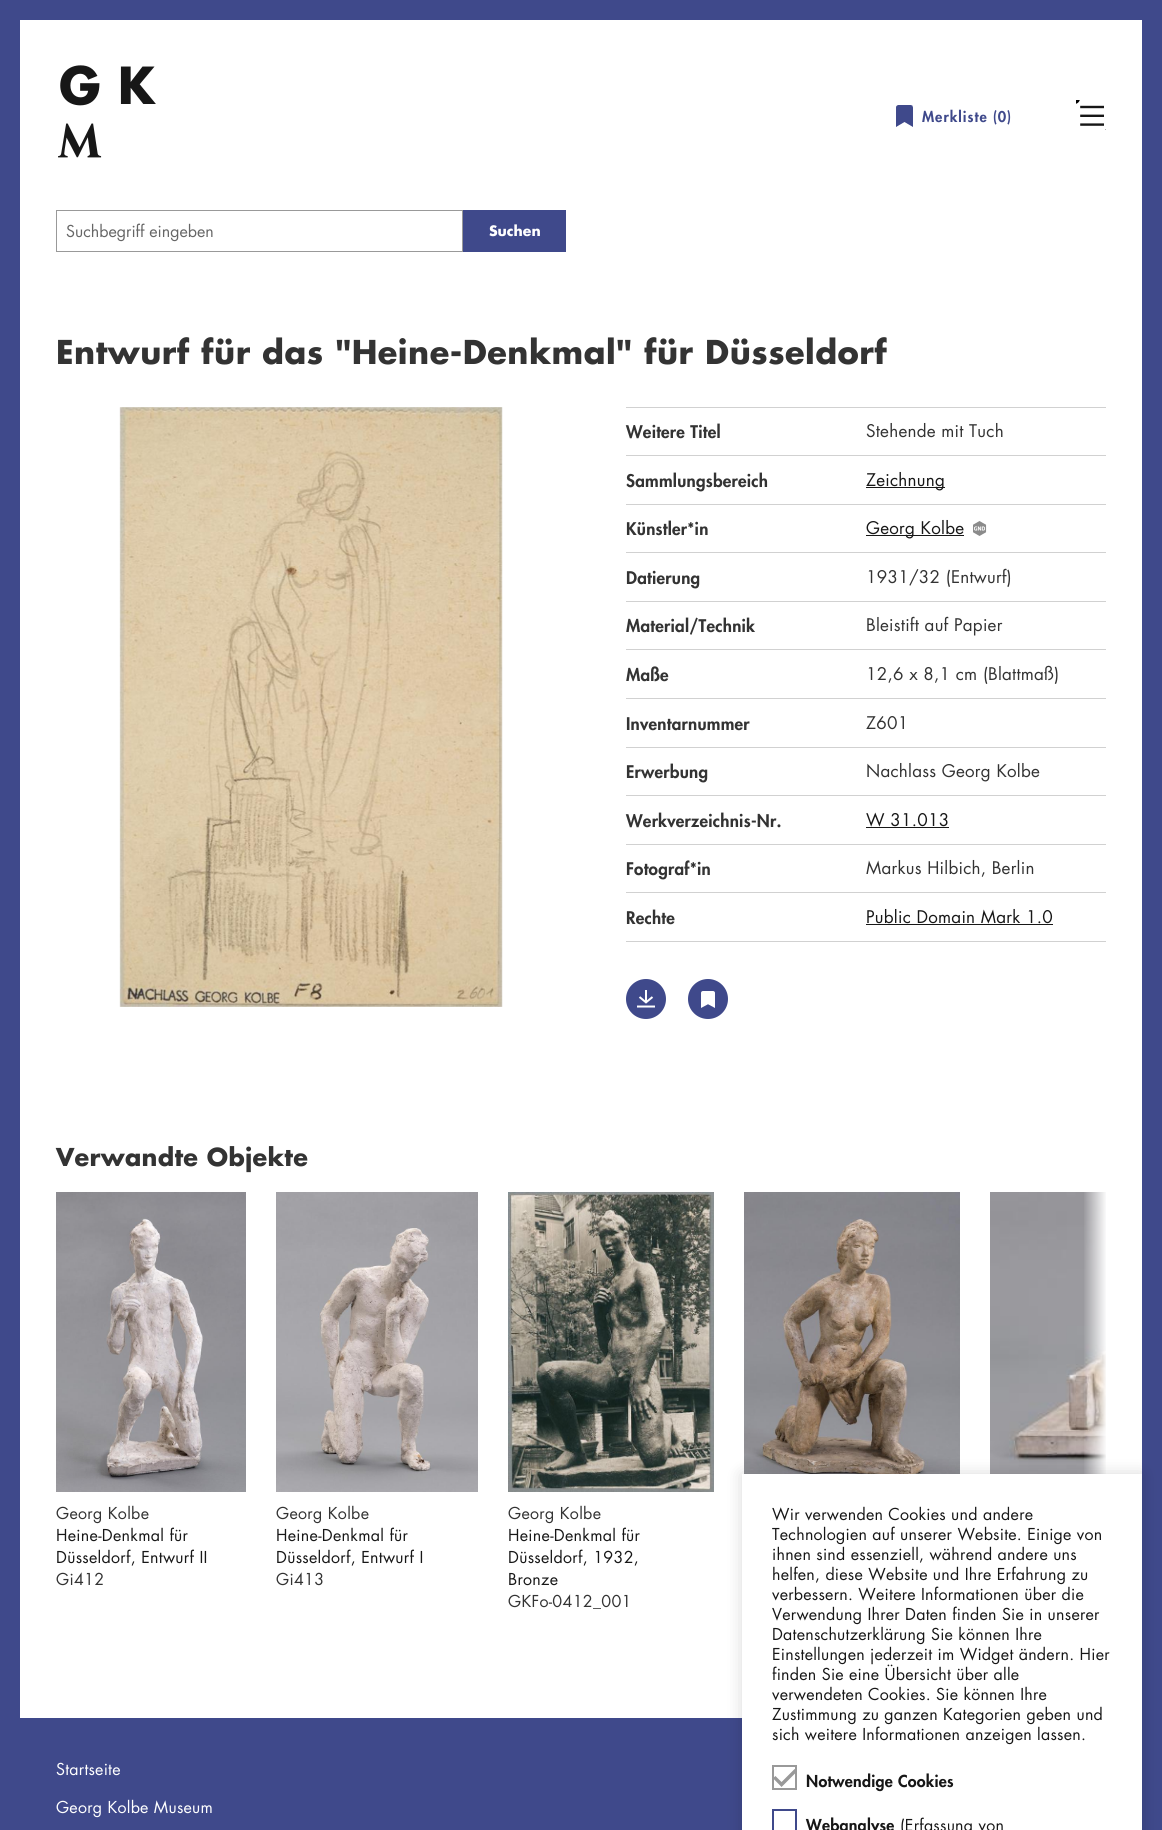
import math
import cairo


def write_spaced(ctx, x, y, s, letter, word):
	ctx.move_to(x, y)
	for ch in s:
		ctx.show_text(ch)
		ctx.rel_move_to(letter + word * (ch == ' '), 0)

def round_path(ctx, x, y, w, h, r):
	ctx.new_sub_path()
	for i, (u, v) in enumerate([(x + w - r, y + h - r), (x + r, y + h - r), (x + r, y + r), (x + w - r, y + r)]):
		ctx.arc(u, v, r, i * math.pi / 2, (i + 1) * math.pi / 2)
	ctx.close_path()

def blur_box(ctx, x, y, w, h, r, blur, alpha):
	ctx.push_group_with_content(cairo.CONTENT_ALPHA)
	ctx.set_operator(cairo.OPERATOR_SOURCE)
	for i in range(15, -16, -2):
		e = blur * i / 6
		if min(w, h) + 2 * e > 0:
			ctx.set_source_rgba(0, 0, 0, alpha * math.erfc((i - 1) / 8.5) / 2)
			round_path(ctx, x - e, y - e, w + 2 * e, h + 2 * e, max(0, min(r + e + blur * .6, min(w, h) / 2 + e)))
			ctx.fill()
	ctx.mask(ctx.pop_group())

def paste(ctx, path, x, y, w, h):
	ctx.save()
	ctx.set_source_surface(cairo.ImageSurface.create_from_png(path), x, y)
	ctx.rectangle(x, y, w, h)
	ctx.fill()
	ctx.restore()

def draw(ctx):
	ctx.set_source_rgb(0.247, 0.286, 0.545)
	ctx.paint()
	ctx.set_source_rgb(1, 1, 1)
	ctx.rectangle(20, 20, 1122, 1698)
	ctx.fill()
	paste(ctx, 'media/1.png', 58, 65, 98, 93)
	paste(ctx, 'media/2.png', 896, 105, 17, 22)
	ctx.select_font_face('Futura Black')
	ctx.set_font_size(14.5)
	ctx.set_source_rgb(0.247, 0.286, 0.545)
	write_spaced(ctx, 922, 122, 'Merkliste (0)', 1, 0)
	paste(ctx, 'media/3.png', 1076, 100, 30, 30)
	ctx.rectangle(56.5, 210.5, 406, 41)
	ctx.set_source_rgb(0.6, 0.6, 0.6)
	ctx.set_line_width(1)
	ctx.stroke()
	ctx.select_font_face('Futura')
	ctx.set_font_size(16)
	ctx.set_source_rgb(0.4, 0.4, 0.4)
	ctx.move_to(66, 237)
	ctx.show_text('Suchbegriff eingeben')
	ctx.set_source_rgb(0.247, 0.286, 0.545)
	ctx.rectangle(463, 210, 103, 42)
	ctx.fill()
	ctx.select_font_face('Futura', cairo.FONT_SLANT_NORMAL, cairo.FONT_WEIGHT_BOLD)
	ctx.set_font_size(14)
	ctx.set_source_rgb(1, 1, 1)
	ctx.move_to(489, 236)
	ctx.show_text('Suchen')
	ctx.set_font_size(32)
	ctx.set_source_rgb(0.2, 0.2, 0.2)
	write_spaced(ctx, 56, 364, 'Entwurf für das "Heine-Denkmal" für Düsseldorf', 0.5, 0)
	paste(ctx, 'media/4.png', 119, 407, 384, 600)
	ctx.set_source_rgb(0.82, 0.82, 0.82)
	ctx.rectangle(626, 407, 480, 1)
	ctx.fill()
	ctx.select_font_face('Futura Black')
	ctx.set_font_size(17)
	ctx.set_source_rgb(0.2, 0.2, 0.2)
	write_spaced(ctx, 626, 438, 'Weitere Titel', 0.25, 0)
	ctx.select_font_face('Futura')
	write_spaced(ctx, 866, 437, 'Stehende mit Tuch', 0.25, 0)
	ctx.set_source_rgb(0.82, 0.82, 0.82)
	ctx.rectangle(626, 455, 480, 1)
	ctx.fill()
	ctx.select_font_face('Futura Black')
	ctx.set_source_rgb(0.2, 0.2, 0.2)
	write_spaced(ctx, 626, 487, 'Sammlungsbereich', 0.25, 0)
	ctx.set_source_rgb(0.09, 0.09, 0.09)
	ctx.rectangle(866, 487, 79, 1)
	ctx.fill()
	ctx.select_font_face('Futura')
	write_spaced(ctx, 866, 486, 'Zeichnung', 0.25, 0)
	ctx.set_source_rgb(0.82, 0.82, 0.82)
	ctx.rectangle(626, 504, 480, 1)
	ctx.fill()
	ctx.select_font_face('Futura Black')
	ctx.set_source_rgb(0.2, 0.2, 0.2)
	write_spaced(ctx, 626, 535, 'Künstler*in', 0.25, 0)
	ctx.set_source_rgb(0.09, 0.09, 0.09)
	ctx.rectangle(866, 535, 98, 1)
	ctx.fill()
	ctx.select_font_face('Futura')
	write_spaced(ctx, 866, 534, 'Georg Kolbe', 0.25, 0)
	paste(ctx, 'media/5.png', 973, 521, 14, 15)
	ctx.set_source_rgb(0.82, 0.82, 0.82)
	ctx.rectangle(626, 552, 480, 1)
	ctx.fill()
	ctx.select_font_face('Futura Black')
	ctx.set_source_rgb(0.2, 0.2, 0.2)
	write_spaced(ctx, 626, 584, 'Datierung', 0.25, 0)
	ctx.select_font_face('Futura')
	write_spaced(ctx, 866, 583, '1931/32 (Entwurf)', 0.25, 0)
	ctx.set_source_rgb(0.82, 0.82, 0.82)
	ctx.rectangle(626, 601, 480, 1)
	ctx.fill()
	ctx.select_font_face('Futura Black')
	ctx.set_source_rgb(0.2, 0.2, 0.2)
	write_spaced(ctx, 626, 632, 'Material/Technik', 0.25, 0)
	ctx.select_font_face('Futura')
	write_spaced(ctx, 866, 631, 'Bleistift auf Papier', 0.25, 0)
	ctx.set_source_rgb(0.82, 0.82, 0.82)
	ctx.rectangle(626, 649, 480, 1)
	ctx.fill()
	ctx.select_font_face('Futura Black')
	ctx.set_source_rgb(0.2, 0.2, 0.2)
	write_spaced(ctx, 626, 681, 'Maße', 0.25, 0)
	ctx.select_font_face('Futura')
	write_spaced(ctx, 866, 680, '12,6 x 8,1 cm (Blattmaß)', 0.25, 0)
	ctx.set_source_rgb(0.82, 0.82, 0.82)
	ctx.rectangle(626, 698, 480, 1)
	ctx.fill()
	ctx.select_font_face('Futura Black')
	ctx.set_source_rgb(0.2, 0.2, 0.2)
	write_spaced(ctx, 626, 730, 'Inventarnummer', 0.25, 0)
	ctx.select_font_face('Futura')
	write_spaced(ctx, 866, 729, 'Z601', 0.25, 0)
	ctx.set_source_rgb(0.82, 0.82, 0.82)
	ctx.rectangle(626, 747, 480, 1)
	ctx.fill()
	ctx.select_font_face('Futura Black')
	ctx.set_source_rgb(0.2, 0.2, 0.2)
	write_spaced(ctx, 626, 778, 'Erwerbung', 0.25, 0)
	ctx.select_font_face('Futura')
	write_spaced(ctx, 866, 777, 'Nachlass Georg Kolbe', 0.25, 0)
	ctx.set_source_rgb(0.82, 0.82, 0.82)
	ctx.rectangle(626, 795, 480, 1)
	ctx.fill()
	ctx.select_font_face('Futura Black')
	ctx.set_source_rgb(0.2, 0.2, 0.2)
	write_spaced(ctx, 626, 827, 'Werkverzeichnis-Nr.', 0.25, 0)
	ctx.select_font_face('Futura')
	ctx.set_source_rgb(0.09, 0.09, 0.09)
	write_spaced(ctx, 866, 826, 'W 31.013', 0.25, 0)
	ctx.rectangle(866, 827, 83, 1)
	ctx.fill()
	ctx.set_source_rgb(0.82, 0.82, 0.82)
	ctx.rectangle(626, 844, 480, 1)
	ctx.fill()
	ctx.select_font_face('Futura Black')
	ctx.set_source_rgb(0.2, 0.2, 0.2)
	write_spaced(ctx, 626, 875, 'Fotograf*in', 0.25, 0)
	ctx.select_font_face('Futura')
	write_spaced(ctx, 866, 874, 'Markus Hilbich, Berlin', 0.25, 0)
	ctx.set_source_rgb(0.82, 0.82, 0.82)
	ctx.rectangle(626, 892, 480, 1)
	ctx.fill()
	ctx.rectangle(626, 941, 480, 1)
	ctx.fill()
	ctx.select_font_face('Futura Black')
	ctx.set_source_rgb(0.2, 0.2, 0.2)
	write_spaced(ctx, 626, 924, 'Rechte', 0.25, 0)
	ctx.select_font_face('Futura')
	ctx.set_source_rgb(0.09, 0.09, 0.09)
	write_spaced(ctx, 866, 923, 'Public Domain Mark 1.0', 0.25, 0)
	ctx.rectangle(866, 924, 187, 1)
	ctx.fill()
	ctx.set_source_rgb(0.247, 0.286, 0.545)
	ctx.arc(646, 999, 20, 0, 2 * math.pi)
	ctx.fill()
	paste(ctx, 'media/6.png', 637, 990, 18, 18)
	ctx.arc(708, 999, 20, 0, 2 * math.pi)
	ctx.fill()
	paste(ctx, 'media/7.png', 701, 991, 14, 17)
	ctx.select_font_face('Futura', cairo.FONT_SLANT_NORMAL, cairo.FONT_WEIGHT_BOLD)
	ctx.set_font_size(24)
	ctx.set_source_rgb(0.2, 0.2, 0.2)
	write_spaced(ctx, 56, 1166, 'Verwandte Objekte', 0.3, 0)
	paste(ctx, 'media/9.png', 990, 1192, 116, 282)
	gradient = cairo.LinearGradient(1083, 1402, 1107, 1402)
	gradient.add_color_stop_rgba(0, 1, 1, 1, 0)
	gradient.add_color_stop_rgba(1, 1, 1, 1, 1)
	ctx.set_source(gradient)
	ctx.rectangle(1084, 1192, 22, 282)
	ctx.fill()
	paste(ctx, 'media/8.png', 744, 1192, 216, 282)
	paste(ctx, 'media/10.png', 56, 1192, 190, 300)
	ctx.select_font_face('Futura')
	ctx.set_font_size(16)
	ctx.set_source_rgb(0.2, 0.2, 0.2)
	write_spaced(ctx, 56, 1519, 'Georg Kolbe', 0.3, 0)
	ctx.set_source_rgb(0.09, 0.09, 0.09)
	write_spaced(ctx, 56, 1541, 'Heine-Denkmal für', 0.3, 0)
	write_spaced(ctx, 56, 1563, 'Düsseldorf, Entwurf II', 0.3, 0)
	ctx.set_source_rgb(0.2, 0.2, 0.2)
	write_spaced(ctx, 56, 1585, 'Gi412', 0.3, 0)
	paste(ctx, 'media/11.png', 276, 1192, 202, 300)
	write_spaced(ctx, 276, 1519, 'Georg Kolbe', 0.3, 0)
	ctx.set_source_rgb(0.09, 0.09, 0.09)
	write_spaced(ctx, 276, 1541, 'Heine-Denkmal für', 0.3, 0)
	write_spaced(ctx, 276, 1563, 'Düsseldorf, Entwurf I', 0.3, 0)
	ctx.set_source_rgb(0.2, 0.2, 0.2)
	write_spaced(ctx, 276, 1585, 'Gi413', 0.3, 0)
	paste(ctx, 'media/12.png', 508, 1192, 206, 300)
	write_spaced(ctx, 508, 1519, 'Georg Kolbe', 0.3, 0)
	ctx.set_source_rgb(0.09, 0.09, 0.09)
	for x, y, s in [
		(508, 1541, 'Heine-Denkmal für'),
		(508, 1563, 'Düsseldorf, 1932,'),
		(508, 1585, 'Bronze'),
	]:
		write_spaced(ctx, x, y, s, 0.3, 0)
	ctx.set_source_rgb(0.2, 0.2, 0.2)
	write_spaced(ctx, 508, 1607, 'GKFo-0412_001', 0.3, 0)
	ctx.set_source_rgb(1, 1, 1)
	write_spaced(ctx, 56, 1775, 'Startseite', 0.25, 0)
	write_spaced(ctx, 56, 1813, 'Georg Kolbe Museum', 0.25, 0)
	ctx.set_source_rgb(0, 0, 0)
	blur_box(ctx, 742, 1474, 400, 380, 0, 8, 0.15)
	ctx.set_source_rgb(1, 1, 1)
	ctx.rectangle(742, 1474, 400, 356)
	ctx.fill()
	ctx.set_source_rgb(0.09, 0.09, 0.09)
	for x, y, s in [
		(772, 1520, 'Wir verwenden Cookies und andere'),
		(772, 1540, 'Technologien auf unserer Website. Einige von'),
		(772, 1560, 'ihnen sind essenziell, während andere uns'),
		(772, 1580, 'helfen, diese Website und Ihre Erfahrung zu'),
		(772, 1600, 'verbessern. Weitere Informationen über die'),
		(772, 1620, 'Verwendung Ihrer Daten finden Sie in unserer'),
		(772, 1640, 'Datenschutzerklärung Sie können Ihre'),
		(772, 1660, 'Einstellungen jederzeit im Widget ändern. Hier'),
		(772, 1680, 'finden Sie eine Übersicht über alle'),
		(772, 1700, 'verwendeten Cookies. Sie können Ihre'),
		(772, 1720, 'Zustimmung zu ganzen Kategorien geben und'),
		(772, 1740, 'sich weitere Informationen anzeigen lassen.'),
	]:
		write_spaced(ctx, x, y, s, 0.25, 0)
	ctx.rectangle(773, 1766, 23, 23)
	ctx.set_source_rgb(0.6, 0.6, 0.6)
	ctx.set_line_width(2)
	ctx.stroke()
	paste(ctx, 'media/13.png', 774, 1769, 21, 18)
	ctx.select_font_face('Futura Black')
	ctx.set_source_rgb(0.09, 0.09, 0.09)
	write_spaced(ctx, 806, 1787, 'Notwendige Cookies', 0.25, 0)
	ctx.rectangle(773, 1810, 23, 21)
	ctx.set_source_rgb(0.247, 0.286, 0.545)
	ctx.stroke()
	ctx.set_source_rgb(0.09, 0.09, 0.09)
	write_spaced(ctx, 806, 1831, 'Webanalyse', 0.25, 0)
	ctx.select_font_face('Futura')
	write_spaced(ctx, 900, 1831, '(Erfassung von', 0.25, 0)


surface = cairo.ImageSurface(cairo.FORMAT_RGB24, 1162, 1830)
ctx = cairo.Context(surface)
options = cairo.FontOptions()
options.set_hint_metrics(cairo.HINT_METRICS_OFF)
options.set_hint_style(cairo.HINT_STYLE_NONE)
ctx.set_font_options(options)
ctx.set_miter_limit(4)
draw(ctx)
surface.write_to_png('image.png')
